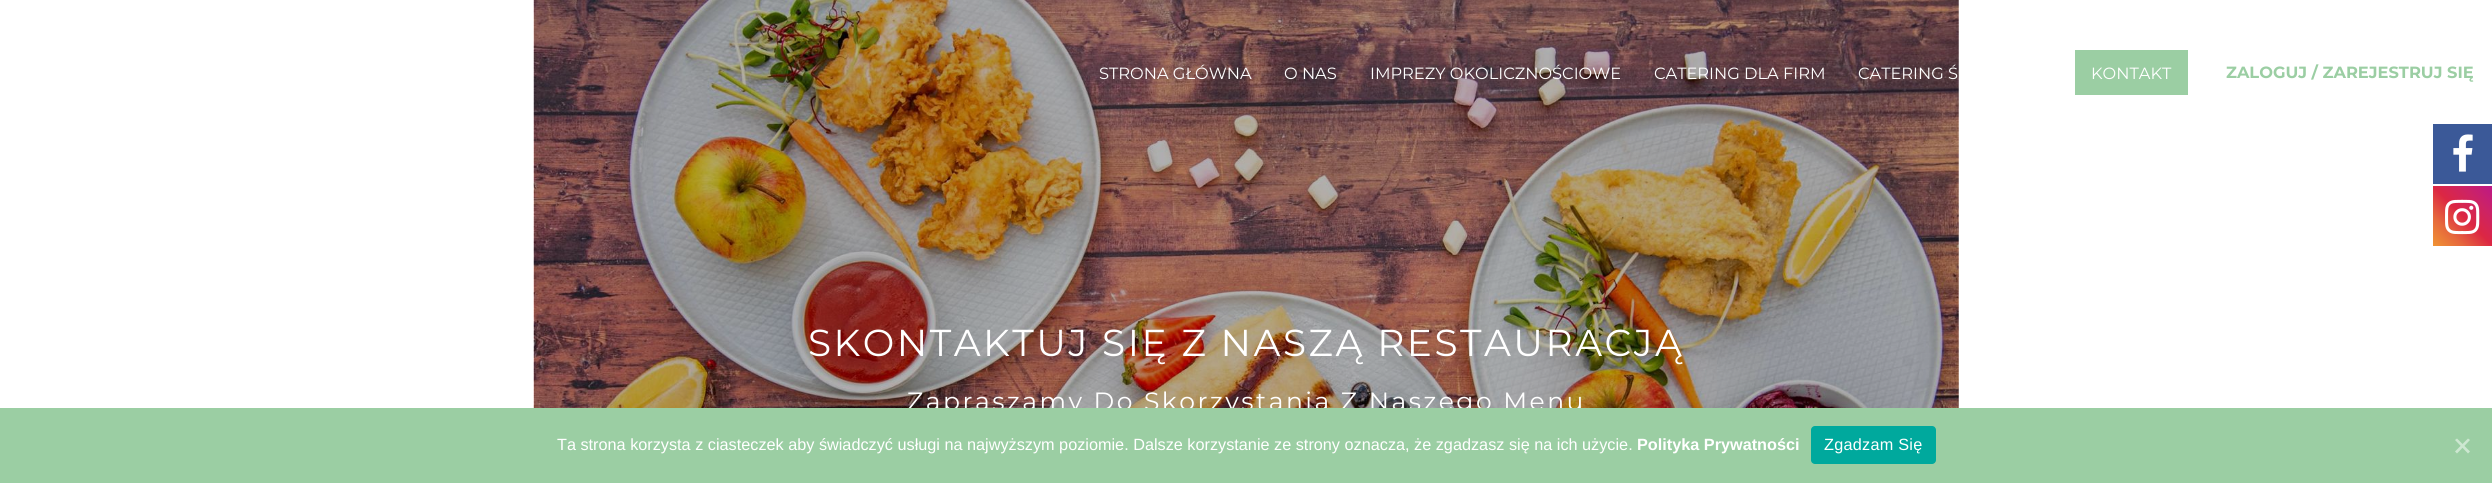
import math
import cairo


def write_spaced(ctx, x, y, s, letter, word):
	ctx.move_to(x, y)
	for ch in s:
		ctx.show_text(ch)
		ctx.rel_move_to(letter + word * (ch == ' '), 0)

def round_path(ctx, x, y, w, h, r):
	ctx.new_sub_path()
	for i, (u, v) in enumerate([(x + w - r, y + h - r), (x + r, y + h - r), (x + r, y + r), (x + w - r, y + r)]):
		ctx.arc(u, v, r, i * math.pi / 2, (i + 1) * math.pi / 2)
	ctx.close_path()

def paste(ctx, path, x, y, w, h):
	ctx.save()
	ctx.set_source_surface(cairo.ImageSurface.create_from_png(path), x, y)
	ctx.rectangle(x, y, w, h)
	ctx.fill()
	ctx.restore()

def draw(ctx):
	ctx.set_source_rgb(1, 1, 1)
	ctx.paint()
	paste(ctx, 'media/1.png', 533, 0, 1426, 408)
	ctx.select_font_face('Montserrat')
	ctx.set_font_size(16.25)
	ctx.set_source_rgb(1, 1, 1)
	for x, y, s in [
		(1099, 79, 'STRONA GŁÓWNA'),
		(1284, 79, 'O NAS'),
		(1370, 79, 'IMPREZY OKOLICZNOŚCIOWE'),
		(1654, 79, 'CATERING DLA FIRM'),
		(1858, 79, 'CATERING Ś'),
	]:
		ctx.move_to(x, y)
		ctx.show_text(s)
	ctx.set_source_rgb(0.608, 0.808, 0.639)
	ctx.rectangle(2075, 50, 113, 45)
	ctx.fill()
	ctx.set_source_rgb(1, 1, 1)
	ctx.move_to(2091, 79)
	ctx.show_text('KONTAKT')
	ctx.select_font_face('Montserrat', cairo.FONT_SLANT_NORMAL, cairo.FONT_WEIGHT_BOLD)
	ctx.set_source_rgb(0.608, 0.808, 0.639)
	ctx.move_to(2226, 78)
	ctx.show_text('ZALOGUJ / ZAREJESTRUJ SIĘ')
	ctx.select_font_face('Montserrat')
	ctx.set_font_size(37.5)
	ctx.set_source_rgb(1, 1, 1)
	write_spaced(ctx, 808, 356, 'SKONTAKTUJ SIĘ Z NASZĄ RESTAURACJĄ', 2.5, 0)
	ctx.set_font_size(25)
	write_spaced(ctx, 907, 410, 'Zapraszamy Do Skorzystania Z Naszego Menu', 2.5, 0)
	ctx.set_source_rgb(0.231, 0.349, 0.596)
	ctx.rectangle(2433, 124, 59, 60)
	ctx.fill()
	paste(ctx, 'media/2.png', 2453, 134, 20, 38)
	gradient = cairo.LinearGradient(2433, 246, 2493, 186)
	gradient.add_color_stop_rgba(0, 0.941, 0.58, 0.2, 1)
	gradient.add_color_stop_rgba(0.25, 0.902, 0.408, 0.235, 1)
	gradient.add_color_stop_rgba(0.5, 0.863, 0.153, 0.263, 1)
	gradient.add_color_stop_rgba(0.75, 0.8, 0.137, 0.4, 1)
	gradient.add_color_stop_rgba(1, 0.737, 0.094, 0.533, 1)
	ctx.set_source(gradient)
	ctx.rectangle(2433, 186, 59, 60)
	ctx.fill()
	paste(ctx, 'media/3.png', 2445, 199, 35, 36)
	ctx.set_source_rgb(0.608, 0.808, 0.639)
	ctx.rectangle(0, 408, 2492, 75)
	ctx.fill()
	ctx.select_font_face('Liberation Sans')
	ctx.set_font_size(16.25)
	ctx.set_source_rgb(1, 1, 1)
	ctx.move_to(557, 450)
	ctx.show_text('Ta strona korzysta z ciasteczek aby świadczyć usługi na najwyższym poziomie. Dalsze korzystanie ze strony oznacza, że zgadzasz się na ich użycie.')
	ctx.select_font_face('Liberation Sans', cairo.FONT_SLANT_NORMAL, cairo.FONT_WEIGHT_BOLD)
	ctx.move_to(1637, 450)
	ctx.show_text('Polityka Prywatności')
	ctx.set_source_rgb(0, 0.663, 0.616)
	round_path(ctx, 1811, 426, 125, 38, 4)
	ctx.fill()
	ctx.select_font_face('Liberation Sans')
	ctx.set_source_rgb(1, 1, 1)
	write_spaced(ctx, 1824, 450, 'Zgadzam Się', 0.25, 0)
	ctx.set_source_rgb(0.804, 0.906, 0.82)
	ctx.new_path()
	ctx.move_to(2468, 438.5)
	ctx.line_to(2470, 440)
	ctx.line_to(2457, 453.5)
	ctx.line_to(2455, 451.5)
	ctx.close_path()
	ctx.fill()
	ctx.new_path()
	ctx.move_to(2455, 440)
	ctx.line_to(2457, 438.5)
	ctx.line_to(2470, 451.5)
	ctx.line_to(2468, 453.5)
	ctx.close_path()
	ctx.fill()


surface = cairo.ImageSurface(cairo.FORMAT_RGB24, 2492, 483)
ctx = cairo.Context(surface)
options = cairo.FontOptions()
options.set_hint_metrics(cairo.HINT_METRICS_OFF)
options.set_hint_style(cairo.HINT_STYLE_NONE)
ctx.set_font_options(options)
ctx.set_miter_limit(4)
draw(ctx)
surface.write_to_png('image.png')
